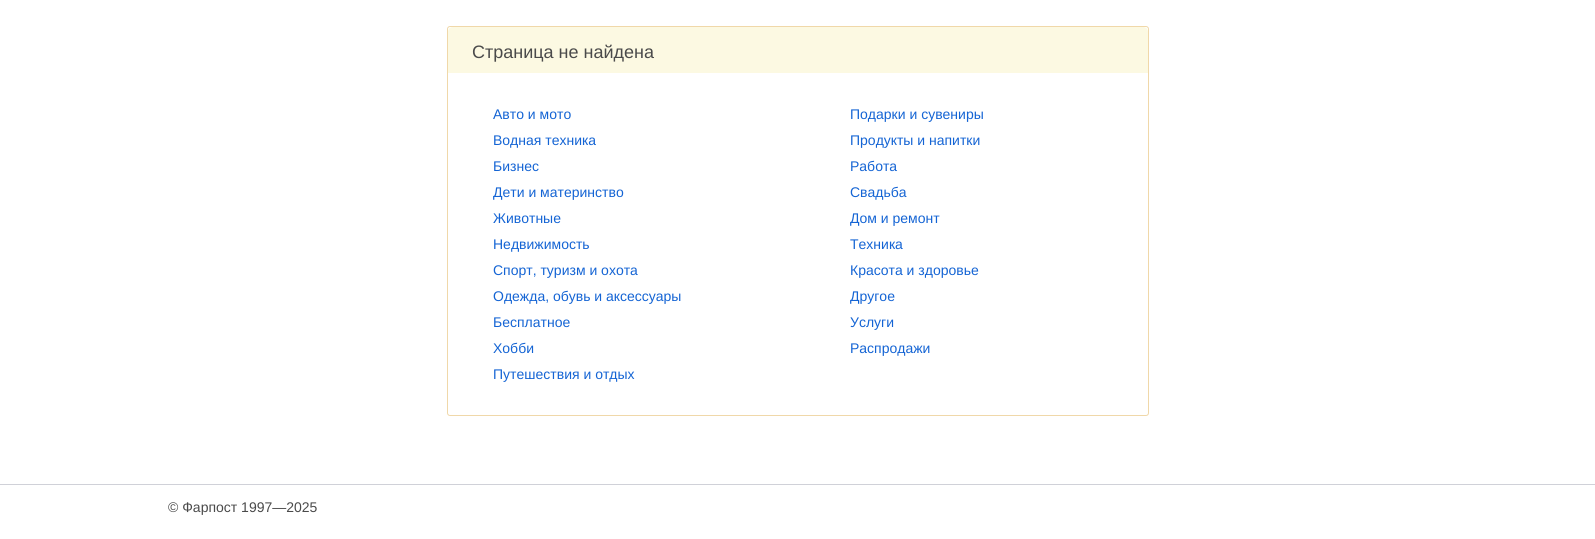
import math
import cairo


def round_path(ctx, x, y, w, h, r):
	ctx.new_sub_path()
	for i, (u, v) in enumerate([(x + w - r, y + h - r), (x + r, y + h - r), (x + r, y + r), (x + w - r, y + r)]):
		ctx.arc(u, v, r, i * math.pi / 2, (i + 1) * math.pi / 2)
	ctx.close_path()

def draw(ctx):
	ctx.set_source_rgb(1, 1, 1)
	ctx.paint()
	round_path(ctx, 447.5, 26.5, 701, 389, 2.5)
	ctx.set_source_rgb(0.941, 0.847, 0.663)
	ctx.set_line_width(1)
	ctx.stroke()
	ctx.set_source_rgb(0.988, 0.973, 0.886)
	ctx.new_path()
	ctx.move_to(453, 27)
	ctx.line_to(1143, 27)
	ctx.curve_to(1146, 27, 1148, 29, 1148, 32)
	ctx.line_to(1148, 73)
	ctx.line_to(448, 73)
	ctx.line_to(448, 32)
	ctx.curve_to(448, 29, 450, 27, 453, 27)
	ctx.close_path()
	ctx.fill()
	ctx.select_font_face('Liberation Sans')
	ctx.set_font_size(18)
	ctx.set_source_rgb(0.29, 0.29, 0.29)
	ctx.move_to(472, 58)
	ctx.show_text('Страница не найдена')
	ctx.set_font_size(14)
	ctx.set_source_rgb(0.082, 0.392, 0.831)
	for x, y, s in [
		(493, 119, 'Авто и мото'),
		(493, 145, 'Водная техника'),
		(493, 171, 'Бизнес'),
		(493, 197, 'Дети и материнство'),
		(493, 223, 'Животные'),
		(493, 249, 'Недвижимость'),
		(493, 275, 'Спорт, туризм и охота'),
		(493, 301, 'Одежда, обувь и аксессуары'),
		(493, 327, 'Бесплатное'),
		(493, 353, 'Хобби'),
		(493, 379, 'Путешествия и отдых'),
		(850, 119, 'Подарки и сувениры'),
		(850, 145, 'Продукты и напитки'),
		(850, 171, 'Работа'),
		(850, 197, 'Свадьба'),
		(850, 223, 'Дом и ремонт'),
		(850, 249, 'Техника'),
		(850, 275, 'Красота и здоровье'),
		(850, 301, 'Другое'),
		(850, 327, 'Услуги'),
		(850, 353, 'Распродажи'),
	]:
		ctx.move_to(x, y)
		ctx.show_text(s)
	ctx.set_source_rgb(0.816, 0.82, 0.847)
	ctx.rectangle(0, 484, 1595, 1)
	ctx.fill()
	ctx.set_source_rgb(0.29, 0.29, 0.29)
	ctx.move_to(168, 512)
	ctx.show_text('© Фарпост 1997—2025')


surface = cairo.ImageSurface(cairo.FORMAT_RGB24, 1595, 539)
ctx = cairo.Context(surface)
options = cairo.FontOptions()
options.set_hint_metrics(cairo.HINT_METRICS_OFF)
options.set_hint_style(cairo.HINT_STYLE_NONE)
ctx.set_font_options(options)
ctx.set_miter_limit(4)
draw(ctx)
surface.write_to_png('image.png')
